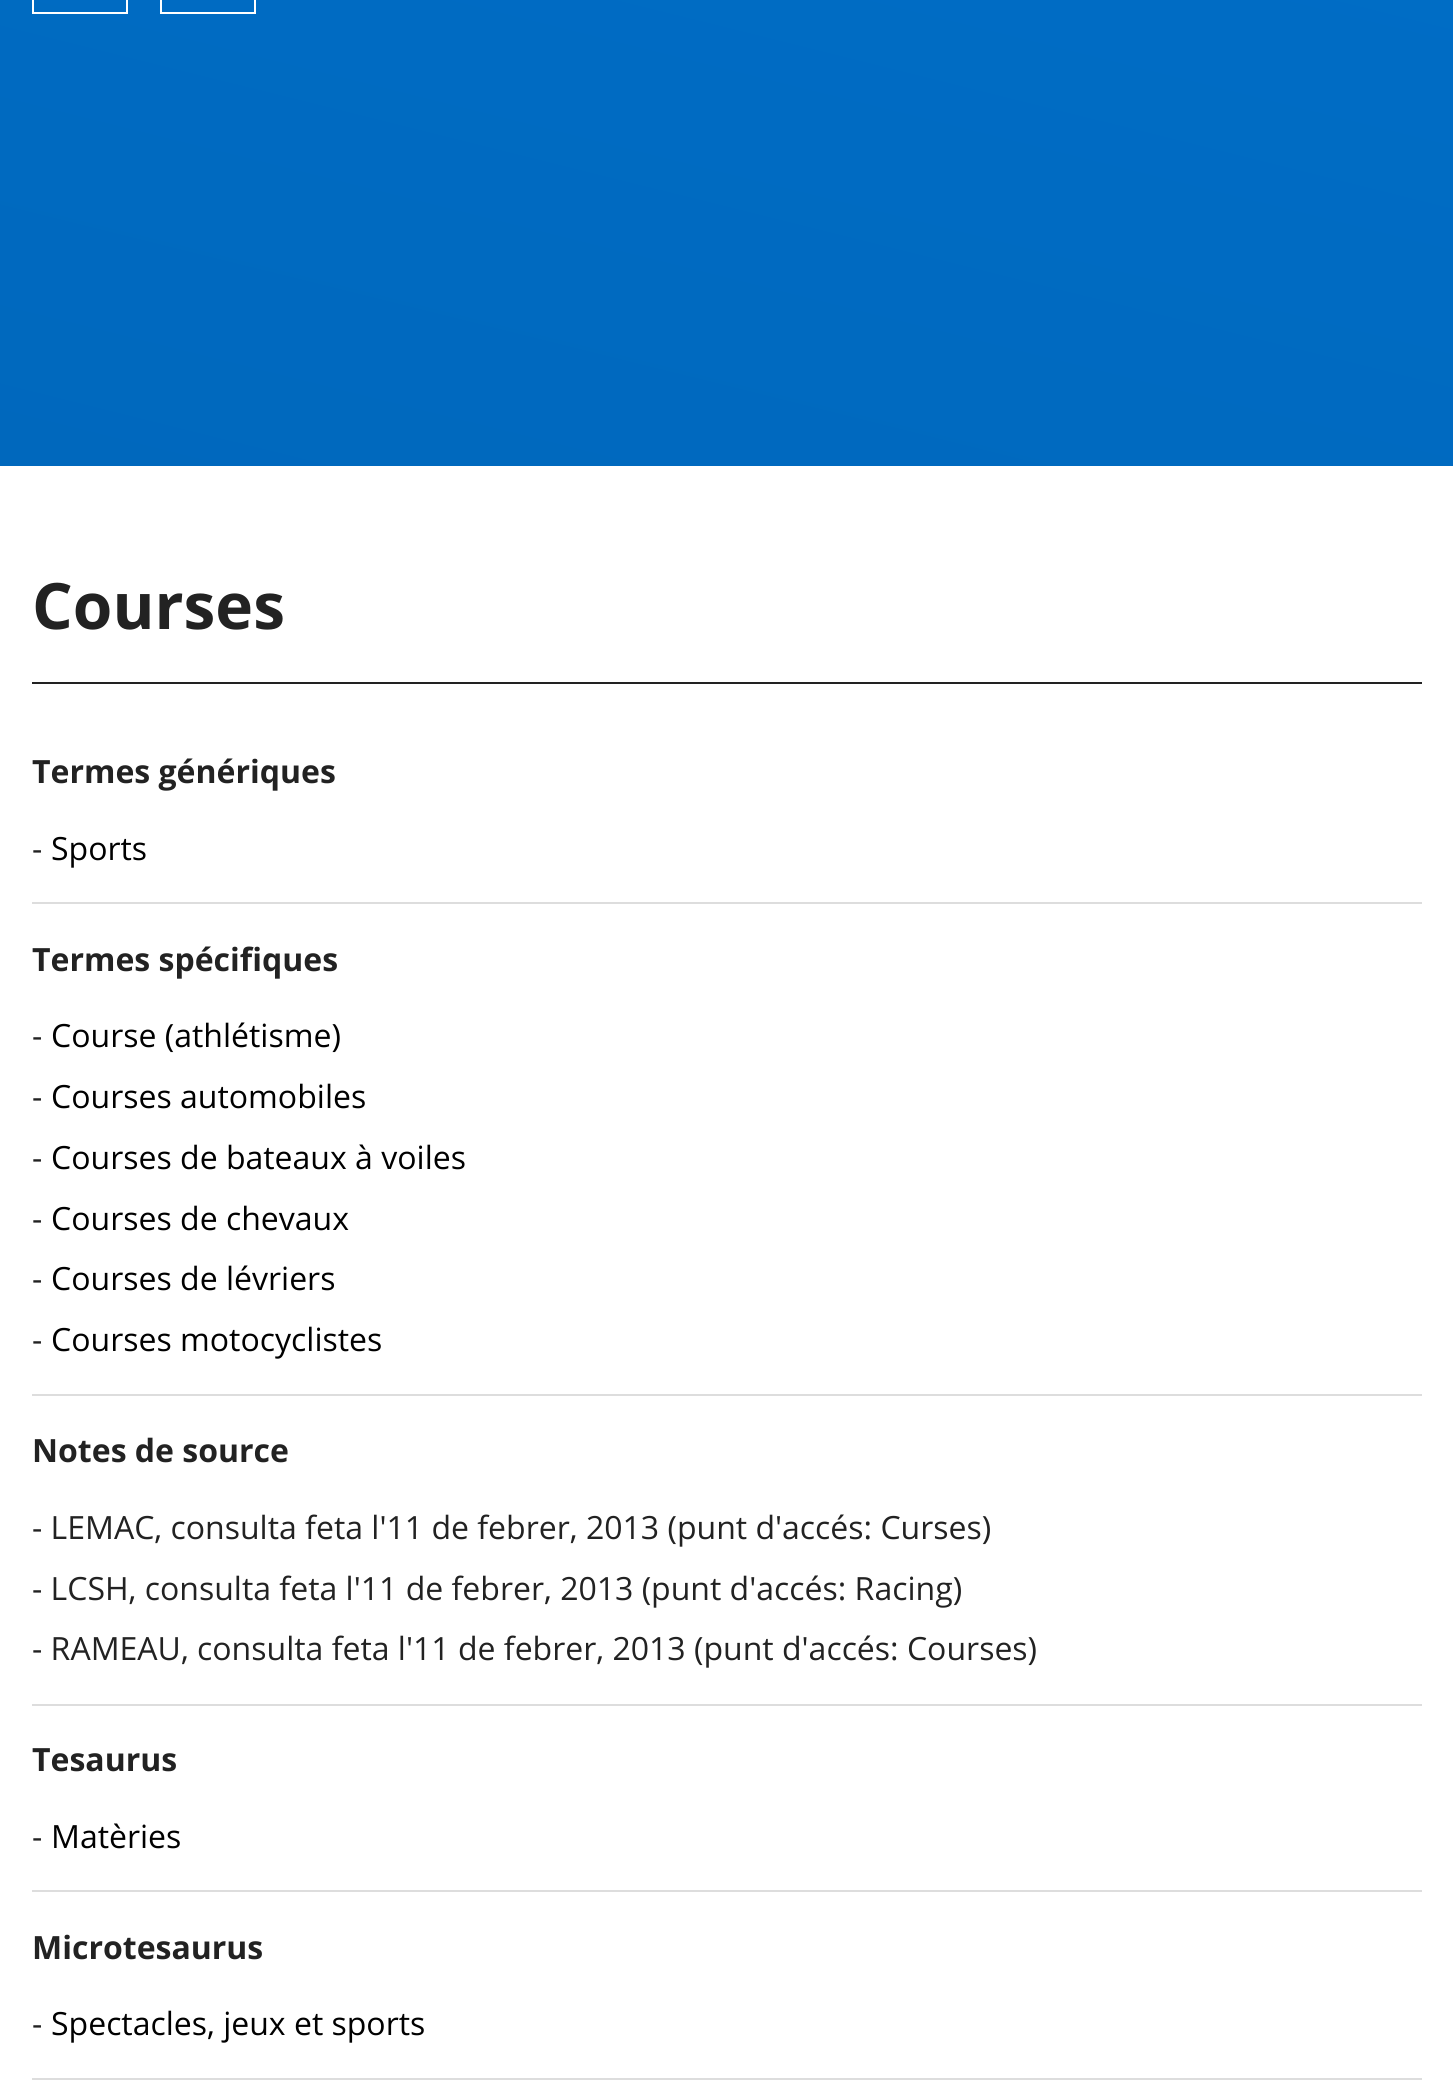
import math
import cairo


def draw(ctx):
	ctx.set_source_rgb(1, 1, 1)
	ctx.paint()
	gradient = cairo.LinearGradient(936, -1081, 518, 595)
	gradient.add_color_stop_rgba(0, 0, 0.447, 0.808, 1)
	gradient.add_color_stop_rgba(1, 0, 0.408, 0.741, 1)
	ctx.set_source(gradient)
	ctx.rectangle(0, 0, 1453, 466)
	ctx.fill()
	ctx.rectangle(33, -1, 94, 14)
	ctx.set_source_rgb(1, 1, 1)
	ctx.stroke()
	ctx.rectangle(161, -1, 94, 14)
	ctx.stroke()
	ctx.set_source_rgb(0.133, 0.133, 0.133)
	ctx.rectangle(32, 682, 1390, 2)
	ctx.fill()
	ctx.select_font_face('Open Sans', cairo.FONT_SLANT_NORMAL, cairo.FONT_WEIGHT_BOLD)
	ctx.set_font_size(64)
	ctx.move_to(32, 629)
	ctx.show_text('Courses')
	ctx.set_font_size(32)
	ctx.move_to(32, 783)
	ctx.show_text('Termes génériques')
	ctx.select_font_face('Open Sans')
	ctx.move_to(32, 860)
	ctx.show_text('-')
	ctx.set_source_rgb(0, 0, 0)
	ctx.move_to(51, 860)
	ctx.show_text('Sports')
	ctx.set_source_rgb(0.867, 0.867, 0.867)
	ctx.rectangle(32, 902, 1390, 2)
	ctx.fill()
	ctx.select_font_face('Open Sans', cairo.FONT_SLANT_NORMAL, cairo.FONT_WEIGHT_BOLD)
	ctx.set_source_rgb(0.133, 0.133, 0.133)
	ctx.move_to(32, 971)
	ctx.show_text('Termes spécifiques')
	ctx.select_font_face('Open Sans')
	ctx.move_to(32, 1047)
	ctx.show_text('-')
	ctx.set_source_rgb(0, 0, 0)
	ctx.move_to(51, 1047)
	ctx.show_text('Course (athlétisme)')
	ctx.set_source_rgb(0.133, 0.133, 0.133)
	ctx.move_to(32, 1108)
	ctx.show_text('-')
	ctx.set_source_rgb(0, 0, 0)
	ctx.move_to(51, 1108)
	ctx.show_text('Courses automobiles')
	ctx.set_source_rgb(0.133, 0.133, 0.133)
	ctx.move_to(32, 1169)
	ctx.show_text('-')
	ctx.set_source_rgb(0, 0, 0)
	ctx.move_to(51, 1169)
	ctx.show_text('Courses de bateaux à voiles')
	ctx.set_source_rgb(0.133, 0.133, 0.133)
	ctx.move_to(32, 1230)
	ctx.show_text('-')
	ctx.set_source_rgb(0, 0, 0)
	ctx.move_to(51, 1230)
	ctx.show_text('Courses de chevaux')
	ctx.set_source_rgb(0.133, 0.133, 0.133)
	ctx.move_to(32, 1290)
	ctx.show_text('-')
	ctx.set_source_rgb(0, 0, 0)
	ctx.move_to(51, 1290)
	ctx.show_text('Courses de lévriers')
	ctx.set_source_rgb(0.133, 0.133, 0.133)
	ctx.move_to(32, 1351)
	ctx.show_text('-')
	ctx.set_source_rgb(0, 0, 0)
	ctx.move_to(51, 1351)
	ctx.show_text('Courses motocyclistes')
	ctx.set_source_rgb(0.867, 0.867, 0.867)
	ctx.rectangle(32, 1394, 1390, 2)
	ctx.fill()
	ctx.select_font_face('Open Sans', cairo.FONT_SLANT_NORMAL, cairo.FONT_WEIGHT_BOLD)
	ctx.set_source_rgb(0.133, 0.133, 0.133)
	ctx.move_to(32, 1462)
	ctx.show_text('Notes de source')
	ctx.select_font_face('Open Sans')
	for x, y, s in [
		(32, 1539, '- LEMAC, consulta feta l\'11 de febrer, 2013 (punt d\'accés: Curses)'),
		(32, 1600, '- LCSH, consulta feta l\'11 de febrer, 2013 (punt d\'accés: Racing)'),
		(32, 1660, '- RAMEAU, consulta feta l\'11 de febrer, 2013 (punt d\'accés: Courses)'),
	]:
		ctx.move_to(x, y)
		ctx.show_text(s)
	ctx.set_source_rgb(0.867, 0.867, 0.867)
	ctx.rectangle(32, 1704, 1390, 2)
	ctx.fill()
	ctx.select_font_face('Open Sans', cairo.FONT_SLANT_NORMAL, cairo.FONT_WEIGHT_BOLD)
	ctx.set_source_rgb(0.133, 0.133, 0.133)
	ctx.move_to(32, 1771)
	ctx.show_text('Tesaurus')
	ctx.select_font_face('Open Sans')
	ctx.move_to(32, 1848)
	ctx.show_text('-')
	ctx.set_source_rgb(0, 0, 0)
	ctx.move_to(51, 1848)
	ctx.show_text('Matèries')
	ctx.set_source_rgb(0.867, 0.867, 0.867)
	ctx.rectangle(32, 1890, 1390, 2)
	ctx.fill()
	ctx.select_font_face('Open Sans', cairo.FONT_SLANT_NORMAL, cairo.FONT_WEIGHT_BOLD)
	ctx.set_source_rgb(0.133, 0.133, 0.133)
	ctx.move_to(32, 1959)
	ctx.show_text('Microtesaurus')
	ctx.select_font_face('Open Sans')
	ctx.move_to(32, 2035)
	ctx.show_text('-')
	ctx.set_source_rgb(0, 0, 0)
	ctx.move_to(51, 2035)
	ctx.show_text('Spectacles, jeux et sports')
	ctx.set_source_rgb(0.867, 0.867, 0.867)
	ctx.rectangle(32, 2078, 1390, 2)
	ctx.fill()


surface = cairo.ImageSurface(cairo.FORMAT_RGB24, 1453, 2080)
ctx = cairo.Context(surface)
options = cairo.FontOptions()
options.set_hint_metrics(cairo.HINT_METRICS_OFF)
options.set_hint_style(cairo.HINT_STYLE_NONE)
ctx.set_font_options(options)
ctx.set_miter_limit(4)
draw(ctx)
surface.write_to_png('image.png')
